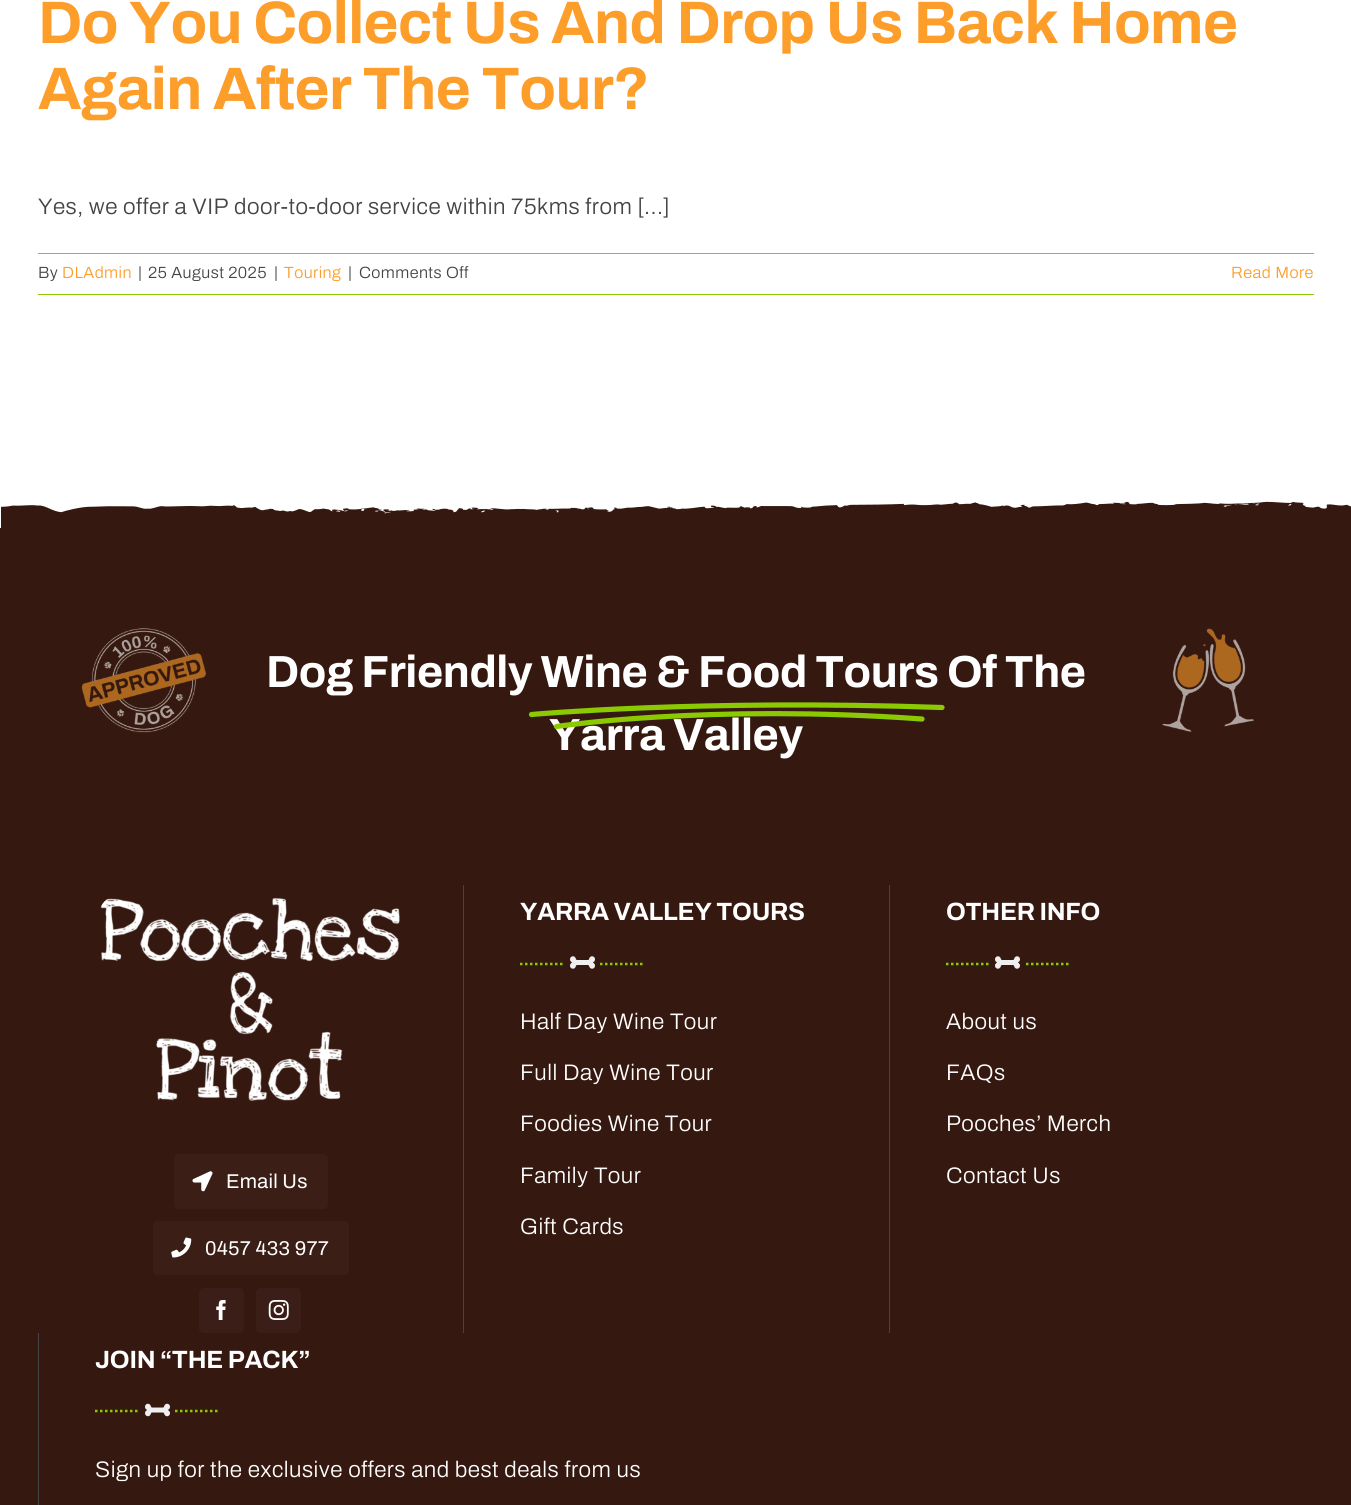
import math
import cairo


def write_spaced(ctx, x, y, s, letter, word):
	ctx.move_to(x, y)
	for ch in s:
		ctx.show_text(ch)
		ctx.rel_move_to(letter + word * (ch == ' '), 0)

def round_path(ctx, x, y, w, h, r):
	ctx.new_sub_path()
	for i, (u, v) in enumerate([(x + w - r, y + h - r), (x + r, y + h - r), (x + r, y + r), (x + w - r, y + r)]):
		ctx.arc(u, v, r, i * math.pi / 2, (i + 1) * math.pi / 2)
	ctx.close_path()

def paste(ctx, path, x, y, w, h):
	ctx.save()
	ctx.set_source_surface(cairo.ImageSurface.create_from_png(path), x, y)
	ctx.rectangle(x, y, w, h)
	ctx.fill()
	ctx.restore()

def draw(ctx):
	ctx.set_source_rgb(1, 1, 1)
	ctx.paint()
	ctx.select_font_face('Archivo', cairo.FONT_SLANT_NORMAL, cairo.FONT_WEIGHT_BOLD)
	ctx.set_font_size(60)
	ctx.set_source_rgb(0.992, 0.616, 0.165)
	write_spaced(ctx, 38, 43, 'Do You Collect Us And Drop Us Back Home', -0.6, 0)
	write_spaced(ctx, 38, 109, 'Again After The Tour?', -0.6, 0)
	ctx.select_font_face('Archivo Light')
	ctx.set_font_size(22.5)
	ctx.set_source_rgb(0.267, 0.267, 0.267)
	write_spaced(ctx, 38, 214, 'Yes, we offer a VIP door-to-door service within 75kms from [...]', 0.45, 0)
	ctx.set_source_rgb(0.545, 0.792, 0.008)
	ctx.rectangle(38, 253, 1276, 1)
	ctx.fill()
	ctx.rectangle(38, 294, 1276, 1)
	ctx.fill()
	ctx.set_font_size(16.25)
	ctx.set_source_rgb(0.267, 0.267, 0.267)
	write_spaced(ctx, 38, 278, 'By', 0.45, 0)
	ctx.set_source_rgb(0.992, 0.616, 0.165)
	write_spaced(ctx, 62, 278, 'DLAdmin', 0.45, 0)
	ctx.set_source_rgb(0.267, 0.267, 0.267)
	for x, y, s in [
		(138, 278, '|'),
		(148, 278, '25 August 2025'),
		(274, 278, '|'),
	]:
		write_spaced(ctx, x, y, s, 0.45, 0)
	ctx.set_source_rgb(0.992, 0.616, 0.165)
	write_spaced(ctx, 284, 278, 'Touring', 0.45, 0)
	ctx.set_source_rgb(0.267, 0.267, 0.267)
	write_spaced(ctx, 348, 278, '|', 0.45, 0)
	write_spaced(ctx, 359, 278, 'Comments Off', 0.45, 0)
	ctx.set_source_rgb(0.992, 0.616, 0.165)
	write_spaced(ctx, 1231, 278, 'Read More', 0.45, 0)
	paste(ctx, 'media/1.png', 1, 501, 1350, 27)
	ctx.set_source_rgb(0.208, 0.094, 0.063)
	ctx.rectangle(0, 528, 1351, 977)
	ctx.fill()
	paste(ctx, 'media/2.png', 81, 628, 125, 105)
	ctx.select_font_face('Archivo', cairo.FONT_SLANT_NORMAL, cairo.FONT_WEIGHT_BOLD)
	ctx.set_font_size(45)
	ctx.set_source_rgb(1, 1, 1)
	for x, y, s in [
		(266, 687, 'Dog Friendly Wine & Food Tours'),
		(947, 687, 'Of The'),
		(549, 750, 'Yarra Valley'),
	]:
		write_spaced(ctx, x, y, s, -0.45, 0)
	ctx.new_path()
	ctx.move_to(531.5, 714.5)
	ctx.curve_to(531.5, 714.5, 699, 699, 942, 707.5)
	ctx.set_source_rgb(0.545, 0.792, 0.008)
	ctx.set_line_width(5.2)
	ctx.set_line_cap(cairo.LINE_CAP_ROUND)
	ctx.set_line_join(cairo.LINE_JOIN_ROUND)
	ctx.stroke()
	ctx.new_path()
	ctx.move_to(556.5, 726.5)
	ctx.curve_to(556.5, 726.5, 706.5, 703.5, 922, 719)
	ctx.stroke()
	paste(ctx, 'media/3.png', 1162, 628, 92, 104)
	ctx.set_source_rgb(0.267, 0.267, 0.267)
	ctx.rectangle(463, 885, 1, 448)
	ctx.fill()
	ctx.set_font_size(25)
	ctx.set_source_rgb(1, 1, 1)
	write_spaced(ctx, 520, 920, 'YARRA VALLEY TOURS', -0.25, 0)
	ctx.new_path()
	ctx.move_to(520, 964)
	ctx.line_to(565, 964)
	ctx.set_source_rgb(0.545, 0.792, 0.008)
	ctx.set_line_width(2.5)
	ctx.set_line_cap(cairo.LINE_CAP_BUTT)
	ctx.set_line_join(cairo.LINE_JOIN_MITER)
	ctx.set_dash([2.5, 2.5])
	ctx.stroke()
	paste(ctx, 'media/4.png', 570, 956, 25, 13)
	ctx.new_path()
	ctx.move_to(600, 964)
	ctx.line_to(645, 964)
	ctx.stroke()
	ctx.select_font_face('Archivo Light')
	ctx.set_font_size(22.5)
	ctx.set_source_rgb(1, 1, 1)
	for x, y, s in [
		(520, 1029, 'Half Day Wine Tour'),
		(520, 1080, 'Full Day Wine Tour'),
		(520, 1131, 'Foodies Wine Tour'),
		(520, 1183, 'Family Tour'),
		(520, 1234, 'Gift Cards'),
	]:
		write_spaced(ctx, x, y, s, 0.45, 0)
	ctx.set_source_rgb(0.267, 0.267, 0.267)
	ctx.rectangle(889, 885, 1, 448)
	ctx.fill()
	ctx.select_font_face('Archivo', cairo.FONT_SLANT_NORMAL, cairo.FONT_WEIGHT_BOLD)
	ctx.set_font_size(25)
	ctx.set_source_rgb(1, 1, 1)
	write_spaced(ctx, 946, 920, 'OTHER INFO', -0.25, 0)
	ctx.new_path()
	ctx.move_to(946, 964)
	ctx.line_to(991, 964)
	ctx.set_source_rgb(0.545, 0.792, 0.008)
	ctx.stroke()
	paste(ctx, 'media/4.png', 995, 956, 25, 13)
	ctx.new_path()
	ctx.move_to(1026, 964)
	ctx.line_to(1071, 964)
	ctx.stroke()
	ctx.select_font_face('Archivo Light')
	ctx.set_font_size(22.5)
	ctx.set_source_rgb(1, 1, 1)
	for x, y, s in [
		(946, 1029, 'About us'),
		(946, 1080, 'FAQs'),
		(946, 1131, 'Pooches’ Merch'),
		(946, 1183, 'Contact Us'),
	]:
		write_spaced(ctx, x, y, s, 0.45, 0)
	paste(ctx, 'media/5.png', 101, 897, 299, 204)
	ctx.set_source_rgb(0.231, 0.122, 0.09)
	round_path(ctx, 174, 1154, 154, 55, 5)
	ctx.fill()
	paste(ctx, 'media/6.png', 192, 1171, 21, 21)
	ctx.select_font_face('Archivo')
	ctx.set_font_size(20)
	ctx.set_source_rgb(1, 1, 1)
	write_spaced(ctx, 226, 1188, 'Email Us', 0.25, 0)
	ctx.set_source_rgb(0.231, 0.122, 0.09)
	round_path(ctx, 153, 1221, 196, 54, 5)
	ctx.fill()
	paste(ctx, 'media/7.png', 171, 1237, 21, 21)
	ctx.set_source_rgb(1, 1, 1)
	write_spaced(ctx, 205, 1255, '0457 433 977', 0.25, 0)
	ctx.set_source_rgb(0.231, 0.118, 0.09)
	round_path(ctx, 199, 1288, 45, 45, 5)
	ctx.fill()
	paste(ctx, 'media/8.png', 216, 1300, 10, 20)
	round_path(ctx, 256, 1288, 45, 45, 5)
	ctx.fill()
	paste(ctx, 'media/9.png', 268, 1300, 21, 20)
	ctx.set_source_rgb(0.267, 0.267, 0.267)
	ctx.rectangle(38, 1333, 1, 172)
	ctx.fill()
	ctx.select_font_face('Archivo', cairo.FONT_SLANT_NORMAL, cairo.FONT_WEIGHT_BOLD)
	ctx.set_font_size(25)
	ctx.set_source_rgb(1, 1, 1)
	write_spaced(ctx, 95, 1368, 'JOIN “THE PACK”', -0.25, 0)
	ctx.new_path()
	ctx.move_to(95, 1411)
	ctx.line_to(140, 1411)
	ctx.set_source_rgb(0.545, 0.792, 0.008)
	ctx.stroke()
	paste(ctx, 'media/10.png', 145, 1403, 25, 14)
	ctx.new_path()
	ctx.move_to(175, 1411)
	ctx.line_to(220, 1411)
	ctx.stroke()
	ctx.select_font_face('Archivo Light')
	ctx.set_font_size(22.5)
	ctx.set_source_rgb(1, 1, 1)
	write_spaced(ctx, 95, 1477, 'Sign up for the exclusive offers and best deals from us', 0.45, 0)


surface = cairo.ImageSurface(cairo.FORMAT_RGB24, 1351, 1505)
ctx = cairo.Context(surface)
options = cairo.FontOptions()
options.set_hint_metrics(cairo.HINT_METRICS_OFF)
options.set_hint_style(cairo.HINT_STYLE_NONE)
ctx.set_font_options(options)
ctx.set_miter_limit(4)
draw(ctx)
surface.write_to_png('image.png')
